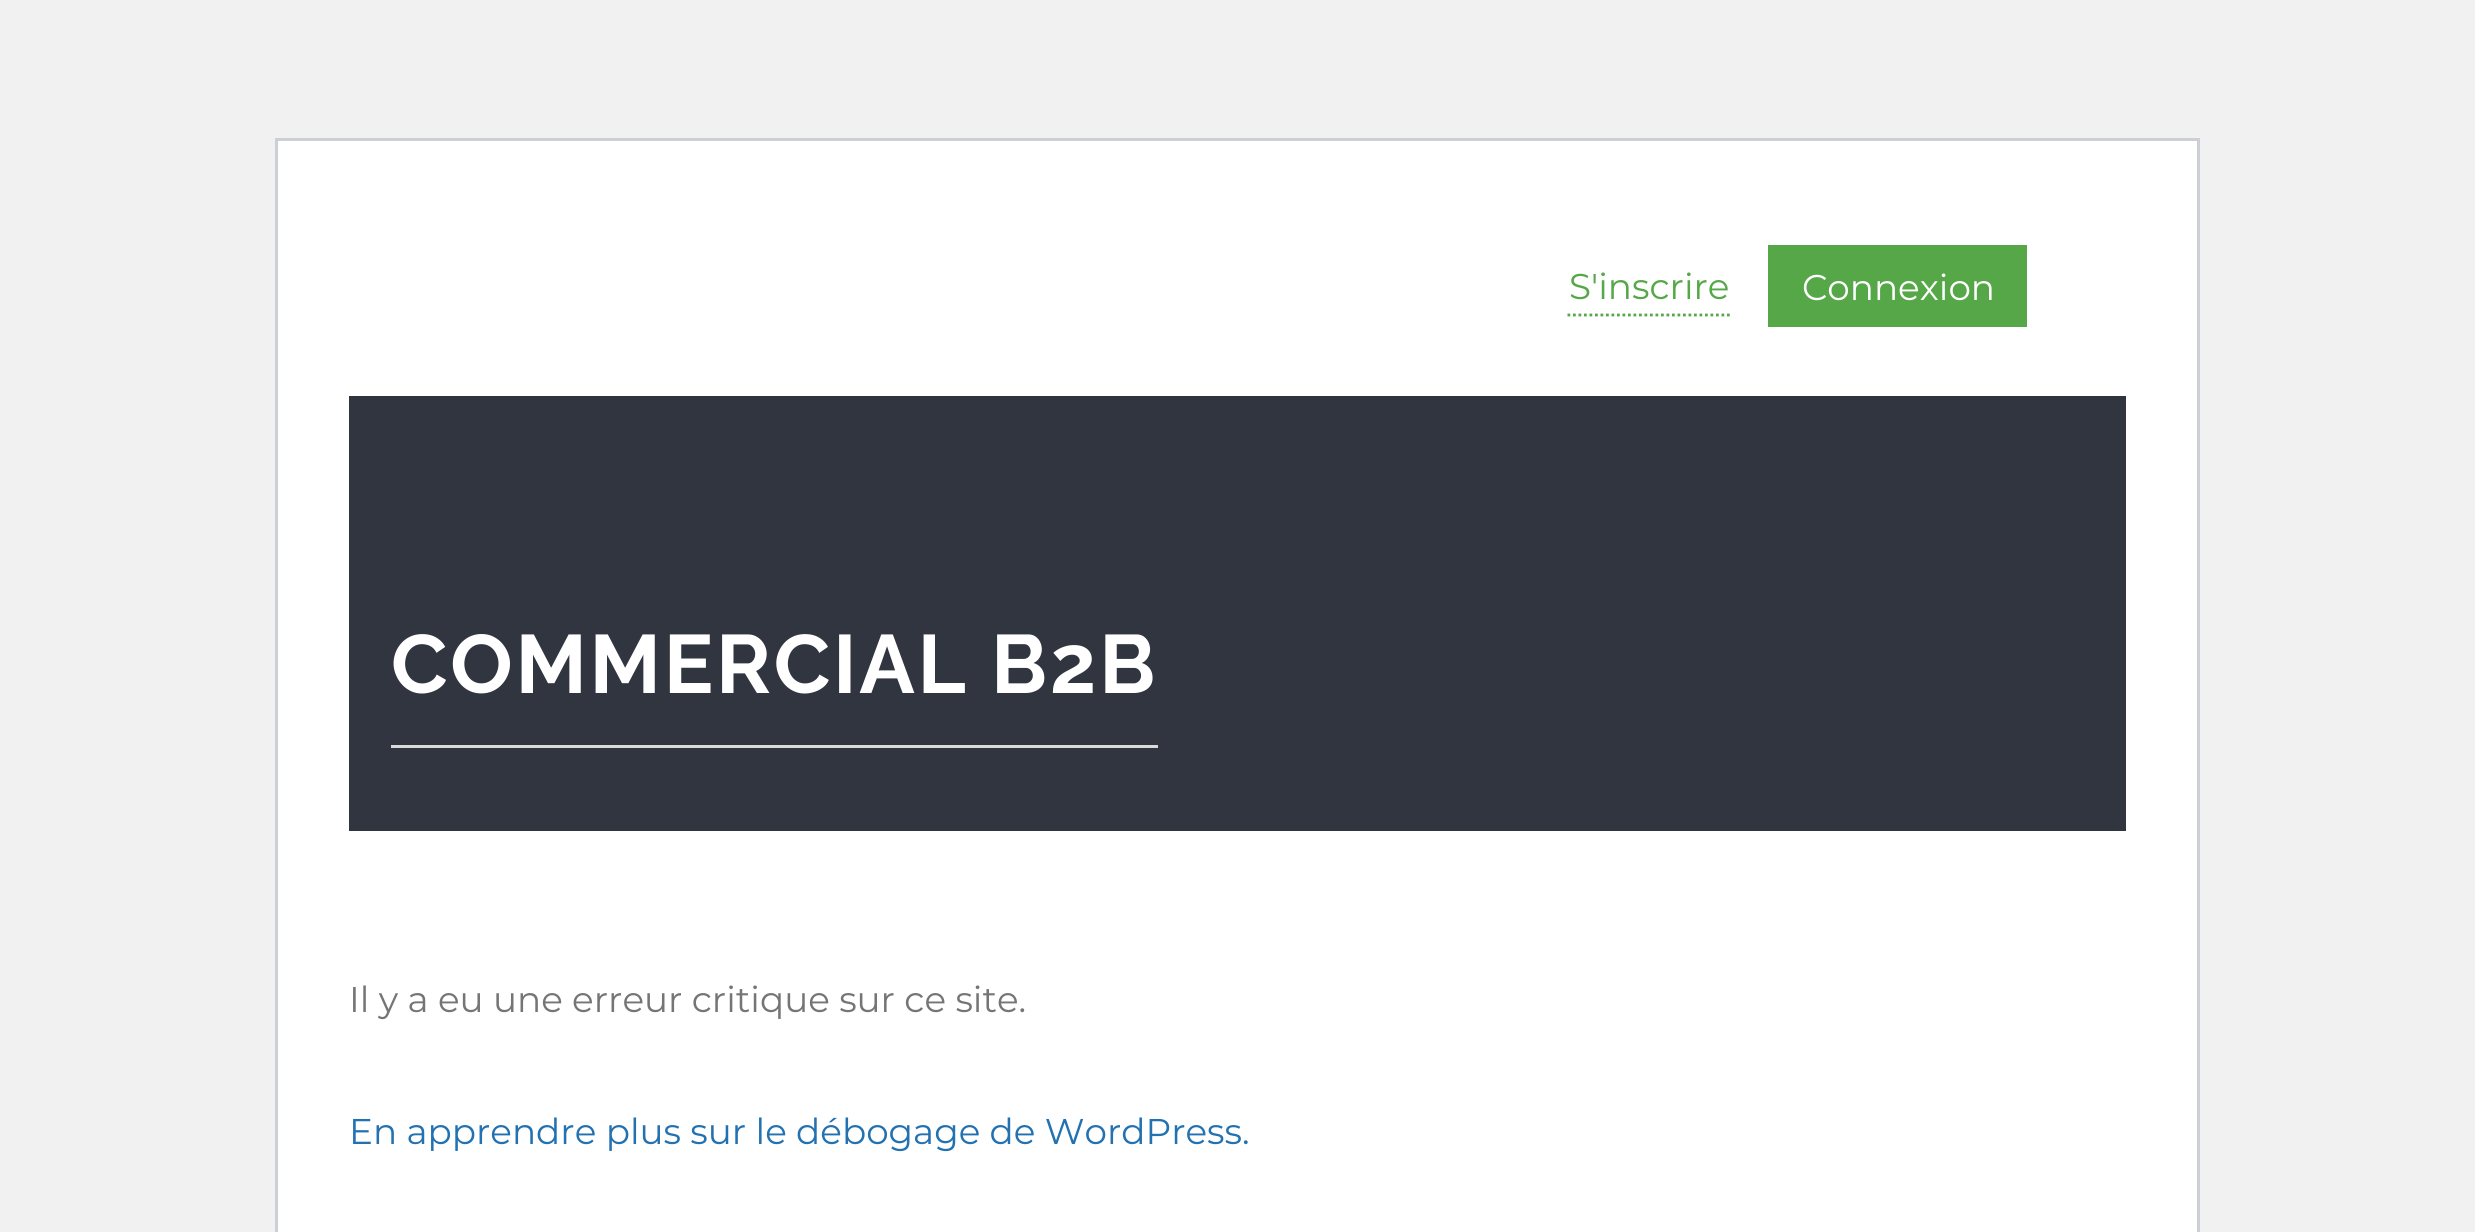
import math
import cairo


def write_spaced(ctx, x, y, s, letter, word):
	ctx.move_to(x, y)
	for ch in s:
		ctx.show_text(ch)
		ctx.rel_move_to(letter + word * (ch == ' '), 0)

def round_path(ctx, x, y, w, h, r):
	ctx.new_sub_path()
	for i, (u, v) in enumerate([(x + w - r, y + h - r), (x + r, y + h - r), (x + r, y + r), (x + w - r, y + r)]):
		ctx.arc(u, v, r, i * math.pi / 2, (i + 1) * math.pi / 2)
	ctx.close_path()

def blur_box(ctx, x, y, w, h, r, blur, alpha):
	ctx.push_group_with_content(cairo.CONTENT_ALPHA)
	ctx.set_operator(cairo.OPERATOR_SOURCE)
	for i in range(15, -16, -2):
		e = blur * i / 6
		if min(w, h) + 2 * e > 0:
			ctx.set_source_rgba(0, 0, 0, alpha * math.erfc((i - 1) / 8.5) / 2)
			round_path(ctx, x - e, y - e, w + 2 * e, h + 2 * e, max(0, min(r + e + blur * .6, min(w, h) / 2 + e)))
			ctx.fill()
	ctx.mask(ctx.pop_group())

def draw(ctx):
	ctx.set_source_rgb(0.945, 0.945, 0.945)
	ctx.paint()
	ctx.set_source_rgb(1, 1, 1)
	ctx.rectangle(276.5, 139.5, 1922, 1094)
	ctx.fill_preserve()
	ctx.set_source_rgb(0.8, 0.816, 0.831)
	ctx.set_line_width(3)
	ctx.stroke()
	ctx.set_source_rgb(0.192, 0.208, 0.251)
	ctx.rectangle(349, 396, 1777, 435)
	ctx.fill()
	ctx.save()
	ctx.rectangle(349, 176, 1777, 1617)
	ctx.clip()
	ctx.set_source_rgb(0, 0, 0)
	blur_box(ctx, 349, 176, 1777, 220, 0, 4, 0.1)
	ctx.restore()
	ctx.set_source_rgb(1, 1, 1)
	ctx.rectangle(349, 176, 1777, 220)
	ctx.fill()
	ctx.new_path()
	ctx.move_to(1567.5, 315)
	ctx.line_to(1730, 315)
	ctx.set_source_rgb(0.333, 0.655, 0.278)
	ctx.set_line_width(2.8)
	ctx.set_dash([2.75, 2.75])
	ctx.stroke()
	ctx.select_font_face('Montserrat')
	ctx.set_font_size(35.75)
	ctx.move_to(1569, 299)
	ctx.show_text('S\'inscrire')
	ctx.rectangle(1768, 245, 259, 82)
	ctx.fill()
	ctx.set_source_rgb(1, 1, 1)
	ctx.move_to(1802, 300)
	ctx.show_text('Connexion')
	ctx.set_source_rgb(0.855, 0.855, 0.855)
	ctx.rectangle(391, 745, 767, 3)
	ctx.fill()
	ctx.select_font_face('Raleway', cairo.FONT_SLANT_NORMAL, cairo.FONT_WEIGHT_BOLD)
	ctx.set_font_size(82.5)
	ctx.set_source_rgb(1, 1, 1)
	write_spaced(ctx, 391, 693, 'COMMERCIAL B2B', 2.75, 0)
	ctx.select_font_face('Montserrat')
	ctx.set_font_size(35.75)
	ctx.set_source_rgb(0.459, 0.459, 0.459)
	ctx.move_to(349, 1012)
	ctx.show_text('Il y a eu une erreur critique sur ce site.')
	ctx.set_source_rgb(0.133, 0.443, 0.694)
	ctx.move_to(349, 1144)
	ctx.show_text('En apprendre plus sur le débogage de WordPress.')


surface = cairo.ImageSurface(cairo.FORMAT_RGB24, 2475, 1232)
ctx = cairo.Context(surface)
options = cairo.FontOptions()
options.set_hint_metrics(cairo.HINT_METRICS_OFF)
options.set_hint_style(cairo.HINT_STYLE_NONE)
ctx.set_font_options(options)
ctx.set_miter_limit(4)
draw(ctx)
surface.write_to_png('image.png')
